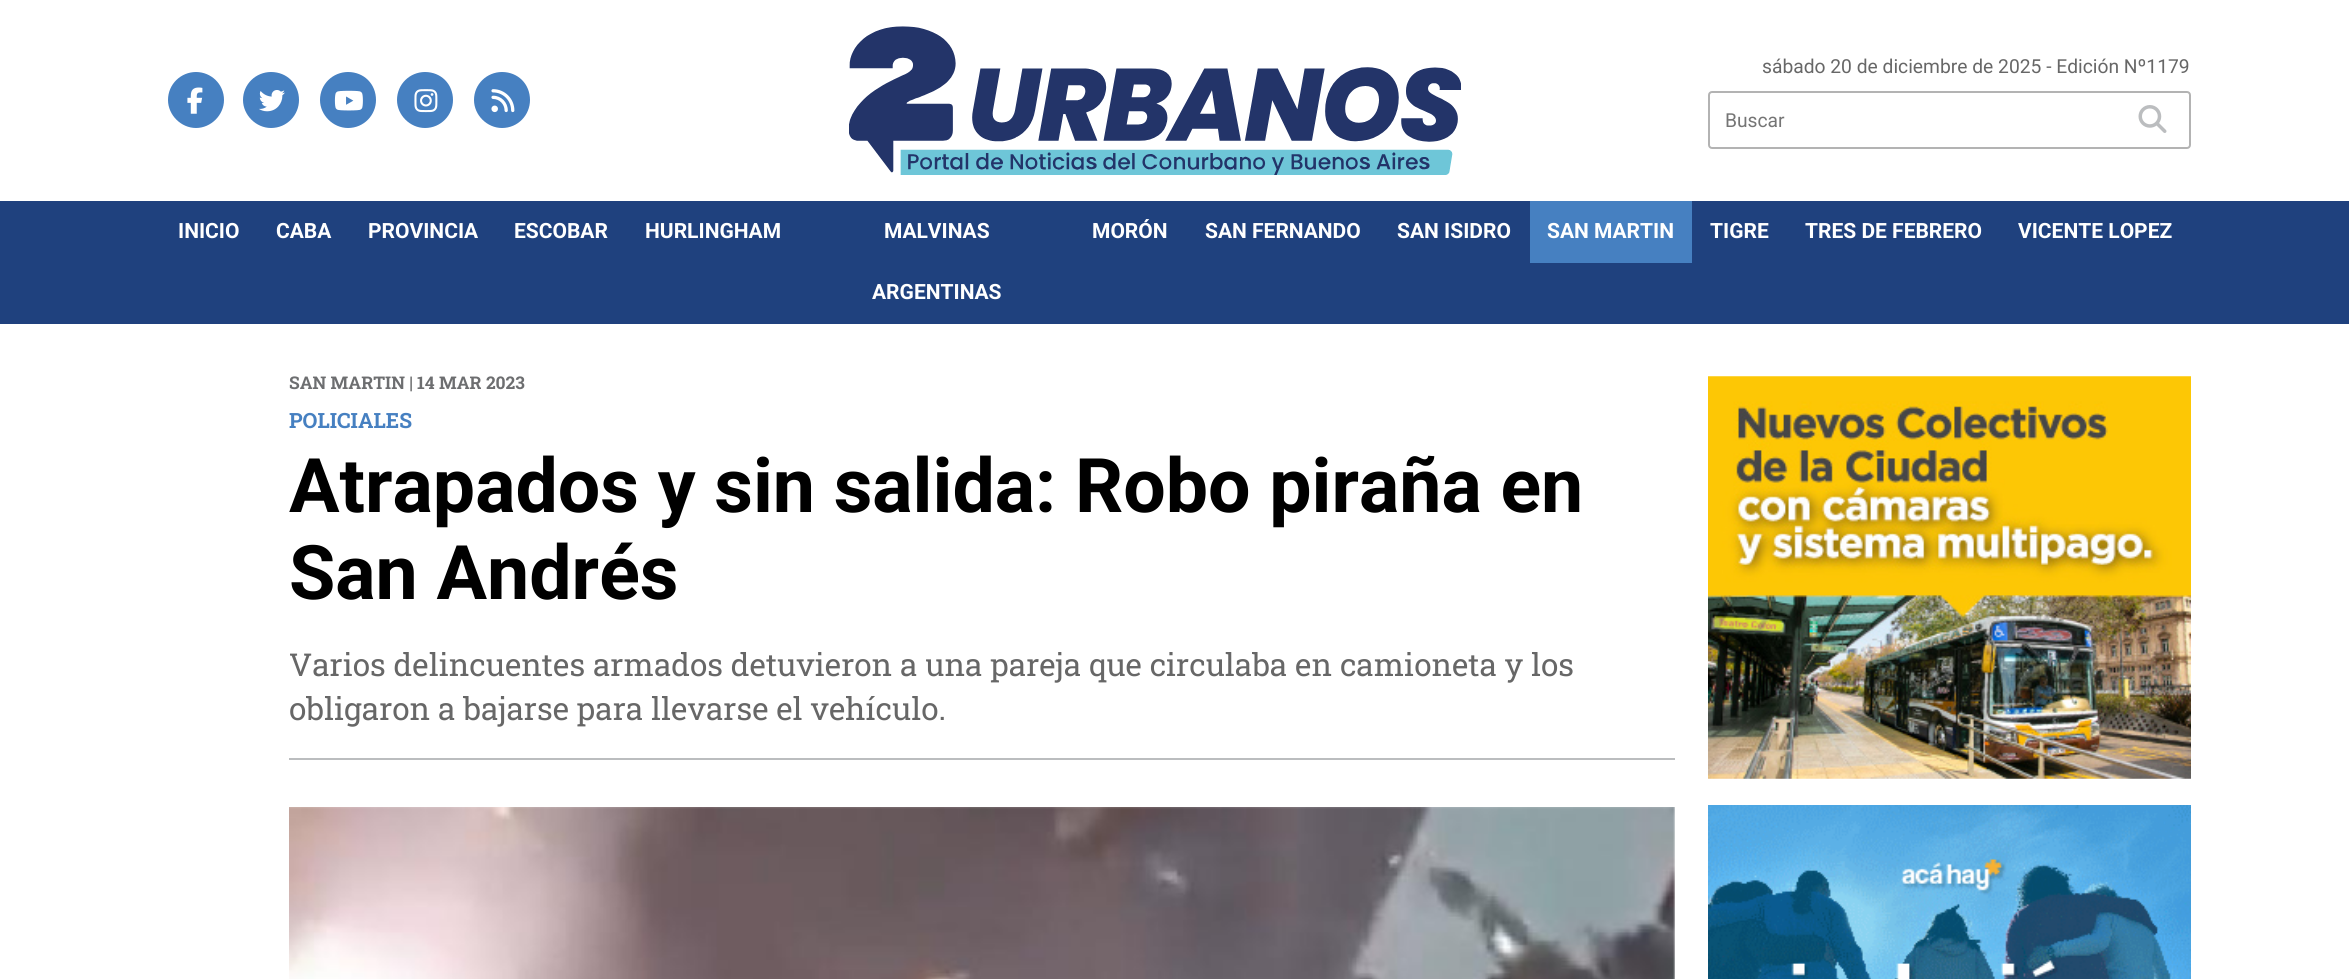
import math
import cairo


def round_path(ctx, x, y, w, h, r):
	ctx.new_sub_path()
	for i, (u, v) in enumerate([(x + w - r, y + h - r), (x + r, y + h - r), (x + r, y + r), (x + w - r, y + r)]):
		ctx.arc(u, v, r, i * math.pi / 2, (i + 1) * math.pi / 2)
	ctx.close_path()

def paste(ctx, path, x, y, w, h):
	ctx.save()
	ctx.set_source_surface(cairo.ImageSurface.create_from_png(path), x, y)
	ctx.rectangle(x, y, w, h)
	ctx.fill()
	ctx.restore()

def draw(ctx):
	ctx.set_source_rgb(1, 1, 1)
	ctx.paint()
	ctx.set_source_rgb(0.275, 0.502, 0.757)
	ctx.new_path()
	ctx.move_to(196, 128)
	ctx.curve_to(211, 128, 224, 115, 224, 100)
	ctx.curve_to(224, 84, 211, 72, 196, 72)
	ctx.curve_to(181, 72, 168, 84, 168, 100)
	ctx.curve_to(168, 115, 181, 128, 196, 128)
	ctx.close_path()
	ctx.fill()
	paste(ctx, 'media/1.png', 187, 87, 16, 27)
	ctx.new_path()
	ctx.move_to(271, 128)
	ctx.curve_to(287, 128, 299, 115, 299, 100)
	ctx.curve_to(299, 84, 287, 72, 271, 72)
	ctx.curve_to(256, 72, 243, 84, 243, 100)
	ctx.curve_to(243, 115, 256, 128, 271, 128)
	ctx.close_path()
	ctx.fill()
	paste(ctx, 'media/2.png', 259, 90, 26, 22)
	ctx.new_path()
	ctx.move_to(348, 128)
	ctx.curve_to(364, 128, 376, 115, 376, 100)
	ctx.curve_to(376, 84, 364, 72, 348, 72)
	ctx.curve_to(333, 72, 320, 84, 320, 100)
	ctx.curve_to(320, 115, 333, 128, 348, 128)
	ctx.close_path()
	ctx.fill()
	paste(ctx, 'media/3.png', 334, 90, 29, 21)
	ctx.new_path()
	ctx.move_to(425, 128)
	ctx.curve_to(441, 128, 453, 115, 453, 100)
	ctx.curve_to(453, 84, 441, 72, 425, 72)
	ctx.curve_to(410, 72, 397, 84, 397, 100)
	ctx.curve_to(397, 115, 410, 128, 425, 128)
	ctx.close_path()
	ctx.fill()
	paste(ctx, 'media/4.png', 414, 89, 24, 24)
	ctx.new_path()
	ctx.move_to(502, 128)
	ctx.curve_to(518, 128, 530, 115, 530, 100)
	ctx.curve_to(530, 84, 518, 72, 502, 72)
	ctx.curve_to(487, 72, 474, 84, 474, 100)
	ctx.curve_to(474, 115, 487, 128, 502, 128)
	ctx.close_path()
	ctx.fill()
	paste(ctx, 'media/5.png', 491, 89, 24, 24)
	paste(ctx, 'media/6.png', 849, 26, 612, 149)
	ctx.select_font_face('Roboto')
	ctx.set_font_size(19.25)
	ctx.set_source_rgb(0.404, 0.404, 0.404)
	ctx.move_to(1762, 73)
	ctx.show_text('sábado 20 de diciembre de 2025 - Edición Nº1179')
	round_path(ctx, 1709, 92, 481, 56, 3)
	ctx.set_source_rgb(0.702, 0.702, 0.702)
	ctx.stroke()
	ctx.set_source_rgb(0.459, 0.459, 0.459)
	ctx.move_to(1725, 127)
	ctx.show_text('Buscar')
	paste(ctx, 'media/7.png', 2138, 105, 29, 28)
	ctx.set_source_rgb(0.122, 0.255, 0.494)
	ctx.rectangle(0, 201, 2349, 123)
	ctx.fill()
	ctx.select_font_face('Roboto', cairo.FONT_SLANT_NORMAL, cairo.FONT_WEIGHT_BOLD)
	ctx.set_font_size(21)
	ctx.set_source_rgb(1, 1, 1)
	for x, y, s in [
		(178, 238, 'INICIO'),
		(276, 238, 'CABA'),
		(368, 238, 'PROVINCIA'),
		(514, 238, 'ESCOBAR'),
		(645, 238, 'HURLINGHAM'),
		(884, 238, 'MALVINAS'),
		(872, 299, 'ARGENTINAS'),
		(1092, 238, 'MORÓN'),
		(1205, 238, 'SAN FERNANDO'),
		(1397, 238, 'SAN ISIDRO'),
	]:
		ctx.move_to(x, y)
		ctx.show_text(s)
	ctx.set_source_rgb(0.275, 0.502, 0.757)
	ctx.rectangle(1530, 201, 162, 62)
	ctx.fill()
	ctx.set_source_rgb(1, 1, 1)
	for x, y, s in [
		(1547, 238, 'SAN MARTIN'),
		(1710, 238, 'TIGRE'),
		(1805, 238, 'TRES DE FEBRERO'),
		(2018, 238, 'VICENTE LOPEZ'),
	]:
		ctx.move_to(x, y)
		ctx.show_text(s)
	ctx.select_font_face('Roboto Slab', cairo.FONT_SLANT_NORMAL, cairo.FONT_WEIGHT_BOLD)
	ctx.set_font_size(17.5)
	ctx.set_source_rgb(0.427, 0.431, 0.439)
	ctx.move_to(289, 389)
	ctx.show_text('SAN MARTIN | 14 MAR 2023')
	ctx.set_font_size(21)
	ctx.set_source_rgb(0.275, 0.502, 0.757)
	ctx.move_to(289, 428)
	ctx.show_text('POLICIALES')
	ctx.select_font_face('Roboto', cairo.FONT_SLANT_NORMAL, cairo.FONT_WEIGHT_BOLD)
	ctx.set_font_size(75.25)
	ctx.set_source_rgb(0, 0, 0)
	ctx.move_to(289, 512)
	ctx.show_text('Atrapados y sin salida: Robo piraña en')
	ctx.move_to(289, 599)
	ctx.show_text('San Andrés')
	ctx.select_font_face('Roboto Slab')
	ctx.set_font_size(31.5)
	ctx.set_source_rgb(0.404, 0.404, 0.404)
	ctx.move_to(289, 676)
	ctx.show_text('Varios delincuentes armados detuvieron a una pareja que circulaba en camioneta y los')
	ctx.move_to(289, 720)
	ctx.show_text('obligaron a bajarse para llevarse el vehículo.')
	ctx.set_source_rgb(0.733, 0.741, 0.749)
	ctx.rectangle(289, 758, 1386, 2)
	ctx.fill()
	paste(ctx, 'media/8.png', 289, 807, 1386, 172)
	paste(ctx, 'media/9.png', 1708, 376, 483, 403)
	paste(ctx, 'media/10.png', 1708, 805, 483, 174)


surface = cairo.ImageSurface(cairo.FORMAT_RGB24, 2349, 979)
ctx = cairo.Context(surface)
options = cairo.FontOptions()
options.set_hint_metrics(cairo.HINT_METRICS_OFF)
options.set_hint_style(cairo.HINT_STYLE_NONE)
ctx.set_font_options(options)
ctx.set_miter_limit(4)
draw(ctx)
surface.write_to_png('image.png')
